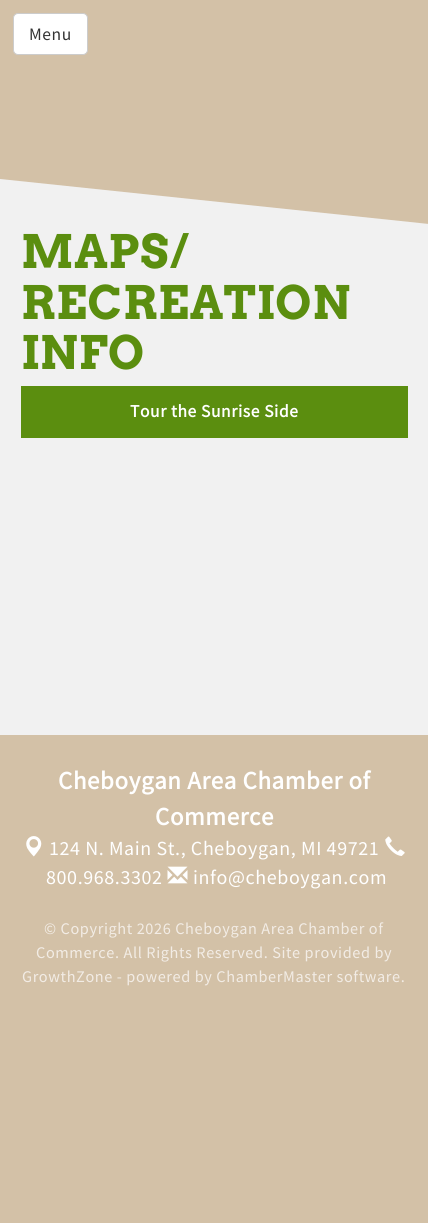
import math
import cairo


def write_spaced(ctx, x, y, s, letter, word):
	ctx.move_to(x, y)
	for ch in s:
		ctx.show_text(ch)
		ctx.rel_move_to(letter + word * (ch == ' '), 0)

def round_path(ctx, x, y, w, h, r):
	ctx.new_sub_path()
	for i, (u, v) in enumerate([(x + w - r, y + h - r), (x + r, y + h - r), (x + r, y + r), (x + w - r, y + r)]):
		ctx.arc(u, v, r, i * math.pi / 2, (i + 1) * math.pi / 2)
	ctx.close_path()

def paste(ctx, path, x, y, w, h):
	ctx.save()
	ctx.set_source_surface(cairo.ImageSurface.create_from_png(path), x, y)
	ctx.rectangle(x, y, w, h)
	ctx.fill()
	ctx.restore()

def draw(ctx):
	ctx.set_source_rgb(0.827, 0.757, 0.655)
	ctx.paint()
	ctx.set_source_rgb(1, 1, 1)
	round_path(ctx, 13.5, 13.5, 74, 41, 4.5)
	ctx.fill_preserve()
	ctx.set_source_rgb(0.8, 0.8, 0.8)
	ctx.set_line_width(1)
	ctx.stroke()
	ctx.select_font_face('Source Sans Pro')
	ctx.set_font_size(17.5)
	ctx.set_source_rgb(0.2, 0.2, 0.2)
	write_spaced(ctx, 29, 40, 'Menu', 0.6, 0)
	ctx.set_source_rgb(0.945, 0.945, 0.945)
	ctx.new_path()
	ctx.move_to(0, 179)
	ctx.line_to(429, 224)
	ctx.line_to(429, 786)
	ctx.line_to(0, 741)
	ctx.close_path()
	ctx.fill()
	ctx.select_font_face('Arvo', cairo.FONT_SLANT_NORMAL, cairo.FONT_WEIGHT_BOLD)
	ctx.set_font_size(46)
	ctx.set_source_rgb(0.357, 0.557, 0.059)
	for x, y, s in [
		(21, 268, 'MAPS/'),
		(21, 319, 'RECREATION'),
		(21, 369, 'INFO'),
	]:
		write_spaced(ctx, x, y, s, 0.6, 0)
	ctx.rectangle(21, 386, 387, 52)
	ctx.fill()
	ctx.select_font_face('Source Sans Pro', cairo.FONT_SLANT_NORMAL, cairo.FONT_WEIGHT_BOLD)
	ctx.set_font_size(17.5)
	ctx.set_source_rgb(1, 1, 1)
	write_spaced(ctx, 130, 417, 'Tour the Sunrise Side', 0.6, 0)
	ctx.set_source_rgb(0.827, 0.757, 0.655)
	ctx.rectangle(0, 735, 428, 51)
	ctx.fill()
	ctx.set_font_size(25)
	ctx.set_source_rgb(1, 1, 1)
	write_spaced(ctx, 58, 789, 'Cheboygan Area Chamber of', 0.6, 0)
	write_spaced(ctx, 155, 825, 'Commerce', 0.6, 0)
	paste(ctx, 'media/1.png', 26, 836, 16, 21)
	ctx.select_font_face('Source Sans Pro')
	ctx.set_font_size(20)
	write_spaced(ctx, 49, 855, '124 N. Main St., Cheboygan, MI 49721', 0.6, 0)
	paste(ctx, 'media/2.png', 385, 836, 20, 20)
	write_spaced(ctx, 46, 884, '800.968.3302', 0.6, 0)
	paste(ctx, 'media/3.png', 167, 866, 21, 18)
	write_spaced(ctx, 193, 884, 'info@cheboygan.com', 0.6, 0)
	ctx.set_font_size(16.25)
	ctx.set_source_rgb(0.949, 0.925, 0.898)
	for x, y, s in [
		(44, 934, '© Copyright 2026 Cheboygan Area Chamber of'),
		(36, 958, 'Commerce. All Rights Reserved. Site provided by'),
		(22, 982, 'GrowthZone - powered by ChamberMaster software.'),
	]:
		write_spaced(ctx, x, y, s, 0.6, 0)


surface = cairo.ImageSurface(cairo.FORMAT_RGB24, 428, 1223)
ctx = cairo.Context(surface)
options = cairo.FontOptions()
options.set_hint_metrics(cairo.HINT_METRICS_OFF)
options.set_hint_style(cairo.HINT_STYLE_NONE)
ctx.set_font_options(options)
ctx.set_miter_limit(4)
draw(ctx)
surface.write_to_png('image.png')
